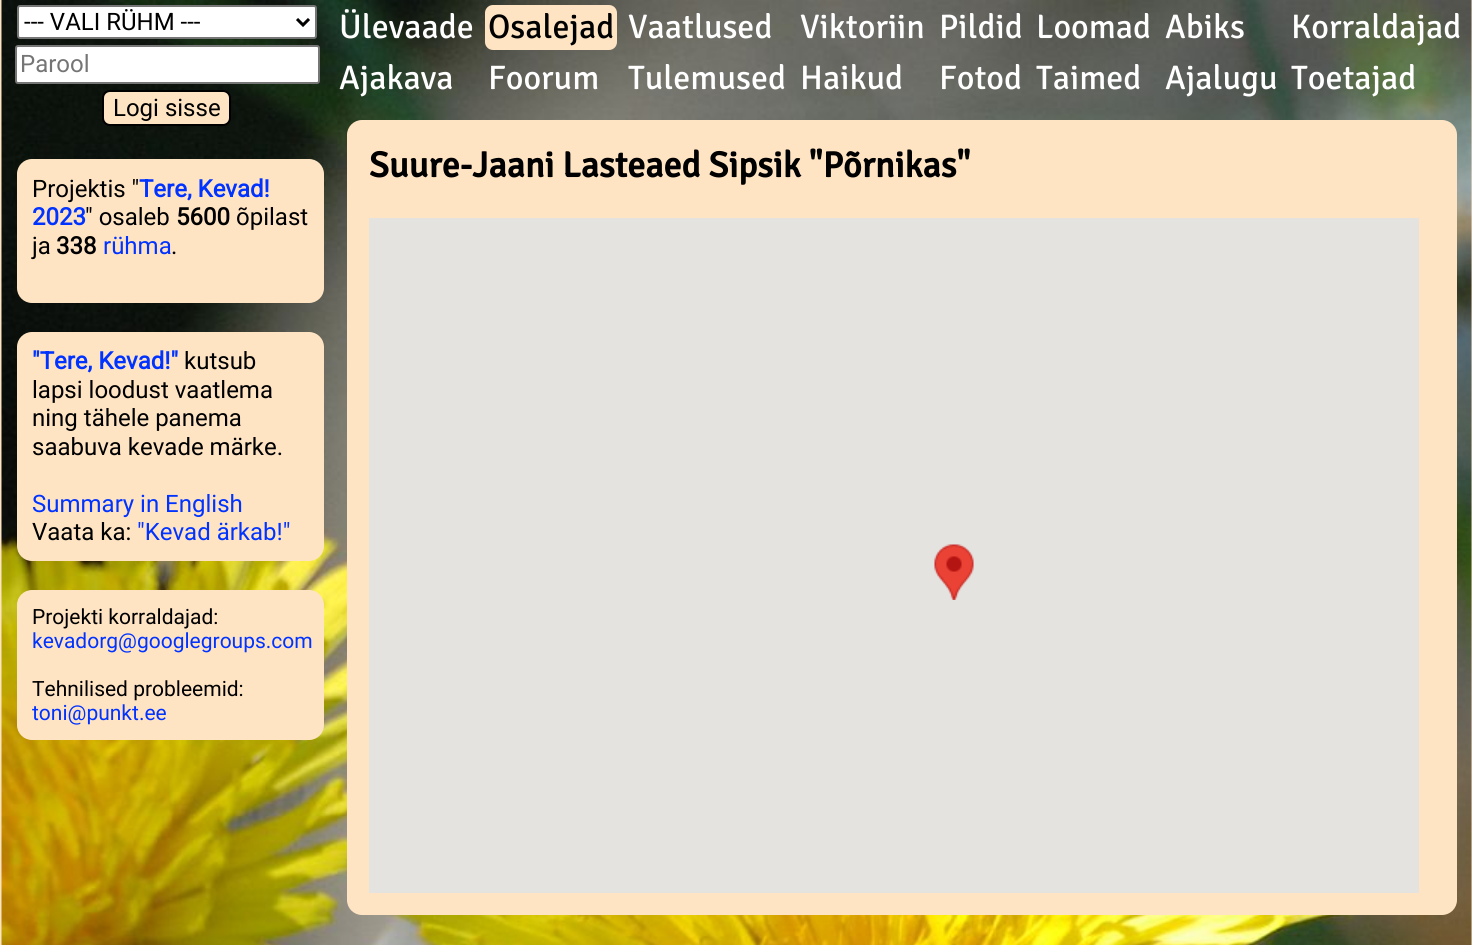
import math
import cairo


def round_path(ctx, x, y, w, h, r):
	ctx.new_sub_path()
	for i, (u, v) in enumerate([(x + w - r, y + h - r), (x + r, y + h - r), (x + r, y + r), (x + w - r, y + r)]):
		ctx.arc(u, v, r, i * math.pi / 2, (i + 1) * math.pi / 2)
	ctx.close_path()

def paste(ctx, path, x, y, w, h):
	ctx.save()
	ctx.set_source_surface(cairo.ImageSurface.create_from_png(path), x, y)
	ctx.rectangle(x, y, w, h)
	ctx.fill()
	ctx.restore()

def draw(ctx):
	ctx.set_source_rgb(1, 0.894, 0.769)
	ctx.paint()
	paste(ctx, 'media/1.png', 1, 0, 1471, 945)
	ctx.set_source_rgb(1, 1, 1)
	round_path(ctx, 18, 6, 298, 32, 2)
	ctx.fill_preserve()
	ctx.set_source_rgb(0.463, 0.463, 0.463)
	ctx.stroke()
	ctx.new_path()
	ctx.move_to(297, 19)
	ctx.line_to(303, 25)
	ctx.line_to(309, 19)
	ctx.set_source_rgb(0, 0, 0)
	ctx.set_line_width(3)
	ctx.stroke()
	ctx.select_font_face('Roboto')
	ctx.set_font_size(24)
	ctx.move_to(24, 30)
	ctx.show_text('--- VALI RÜHM ---')
	ctx.set_source_rgb(1, 1, 1)
	round_path(ctx, 16, 46, 303, 37, 2)
	ctx.fill_preserve()
	ctx.set_source_rgb(0.463, 0.463, 0.463)
	ctx.set_line_width(2)
	ctx.stroke()
	ctx.set_source_rgb(0.459, 0.459, 0.459)
	ctx.move_to(20, 72)
	ctx.show_text('Parool')
	ctx.set_source_rgb(1, 0.894, 0.769)
	round_path(ctx, 103, 91, 127, 34, 7)
	ctx.fill_preserve()
	ctx.set_source_rgb(0, 0, 0)
	ctx.stroke()
	ctx.move_to(113, 116)
	ctx.show_text('Logi sisse')
	ctx.set_source_rgb(1, 0.894, 0.769)
	round_path(ctx, 17, 159, 307, 144, 15)
	ctx.fill()
	ctx.set_source_rgb(0, 0, 0)
	ctx.move_to(32, 197)
	ctx.show_text('Projektis "')
	ctx.select_font_face('Roboto', cairo.FONT_SLANT_NORMAL, cairo.FONT_WEIGHT_BOLD)
	ctx.set_source_rgb(0, 0.2, 1)
	ctx.move_to(139, 197)
	ctx.show_text('Tere, Kevad!')
	ctx.move_to(32, 225)
	ctx.show_text('2023')
	ctx.select_font_face('Roboto')
	ctx.set_source_rgb(0, 0, 0)
	ctx.move_to(85, 225)
	ctx.show_text('" osaleb')
	ctx.select_font_face('Roboto', cairo.FONT_SLANT_NORMAL, cairo.FONT_WEIGHT_BOLD)
	ctx.move_to(176, 225)
	ctx.show_text('5600')
	ctx.select_font_face('Roboto')
	ctx.move_to(236, 225)
	ctx.show_text('õpilast')
	ctx.move_to(32, 254)
	ctx.show_text('ja')
	ctx.select_font_face('Roboto', cairo.FONT_SLANT_NORMAL, cairo.FONT_WEIGHT_BOLD)
	ctx.move_to(56, 254)
	ctx.show_text('338')
	ctx.select_font_face('Roboto')
	ctx.set_source_rgb(0, 0.2, 1)
	ctx.move_to(103, 254)
	ctx.show_text('rühma')
	ctx.set_source_rgb(0, 0, 0)
	ctx.move_to(171, 254)
	ctx.show_text('.')
	ctx.set_source_rgb(1, 0.894, 0.769)
	round_path(ctx, 17, 332, 307, 229, 15)
	ctx.fill()
	ctx.select_font_face('Roboto', cairo.FONT_SLANT_NORMAL, cairo.FONT_WEIGHT_BOLD)
	ctx.set_source_rgb(0, 0.2, 1)
	ctx.move_to(32, 369)
	ctx.show_text('"Tere, Kevad!"')
	ctx.select_font_face('Roboto')
	ctx.set_source_rgb(0, 0, 0)
	for x, y, s in [
		(184, 369, 'kutsub'),
		(32, 398, 'lapsi loodust vaatlema'),
		(32, 426, 'ning tähele panema'),
		(32, 455, 'saabuva kevade märke.'),
	]:
		ctx.move_to(x, y)
		ctx.show_text(s)
	ctx.set_source_rgb(0, 0.2, 1)
	ctx.move_to(32, 512)
	ctx.show_text('Summary in English')
	ctx.set_source_rgb(0, 0, 0)
	ctx.move_to(32, 540)
	ctx.show_text('Vaata ka:')
	ctx.set_source_rgb(0, 0.2, 1)
	ctx.move_to(137, 540)
	ctx.show_text('"Kevad ärkab!"')
	ctx.set_source_rgb(1, 0.894, 0.769)
	round_path(ctx, 17, 590, 307, 150, 15)
	ctx.fill()
	ctx.set_font_size(21)
	ctx.set_source_rgb(0, 0, 0)
	ctx.move_to(32, 624)
	ctx.show_text('Projekti korraldajad:')
	ctx.set_source_rgb(0, 0.2, 1)
	ctx.move_to(32, 648)
	ctx.show_text('kevadorg@googlegroups.com')
	ctx.set_source_rgb(0, 0, 0)
	ctx.move_to(32, 696)
	ctx.show_text('Tehnilised probleemid:')
	ctx.set_source_rgb(0, 0.2, 1)
	ctx.move_to(32, 720)
	ctx.show_text('toni@punkt.ee')
	ctx.select_font_face('Signika Light')
	ctx.set_font_size(34)
	ctx.set_source_rgb(1, 1, 1)
	ctx.move_to(339, 38)
	ctx.show_text('Ülevaade')
	ctx.set_source_rgb(1, 0.894, 0.769)
	round_path(ctx, 485, 5, 132, 45, 8)
	ctx.fill()
	ctx.set_source_rgb(0, 0, 0)
	ctx.move_to(488, 38)
	ctx.show_text('Osalejad')
	ctx.set_source_rgb(1, 1, 1)
	for x, y, s in [
		(628, 38, 'Vaatlused'),
		(800, 38, 'Viktoriin'),
		(939, 38, 'Pildid'),
		(1036, 38, 'Loomad'),
		(1165, 38, 'Abiks'),
		(1291, 38, 'Korraldajad'),
		(339, 89, 'Ajakava'),
		(488, 89, 'Foorum'),
		(628, 89, 'Tulemused'),
		(800, 89, 'Haikud'),
		(939, 89, 'Fotod'),
		(1036, 89, 'Taimed'),
		(1165, 89, 'Ajalugu'),
		(1291, 89, 'Toetajad'),
	]:
		ctx.move_to(x, y)
		ctx.show_text(s)
	ctx.set_source_rgb(1, 0.894, 0.769)
	round_path(ctx, 347, 120, 1110, 795, 15)
	ctx.fill()
	ctx.select_font_face('Signika', cairo.FONT_SLANT_NORMAL, cairo.FONT_WEIGHT_BOLD)
	ctx.set_font_size(36)
	ctx.set_source_rgb(0, 0, 0)
	ctx.move_to(369, 177)
	ctx.show_text('Suure-Jaani Lasteaed Sipsik "Põrnikas"')
	ctx.set_source_rgb(0.898, 0.89, 0.875)
	ctx.rectangle(369, 218, 1050, 675)
	ctx.fill()
	paste(ctx, 'media/2.png', 934, 544, 40, 56)


surface = cairo.ImageSurface(cairo.FORMAT_RGB24, 1472, 945)
ctx = cairo.Context(surface)
options = cairo.FontOptions()
options.set_hint_metrics(cairo.HINT_METRICS_OFF)
options.set_hint_style(cairo.HINT_STYLE_NONE)
ctx.set_font_options(options)
ctx.set_miter_limit(4)
draw(ctx)
surface.write_to_png('image.png')
